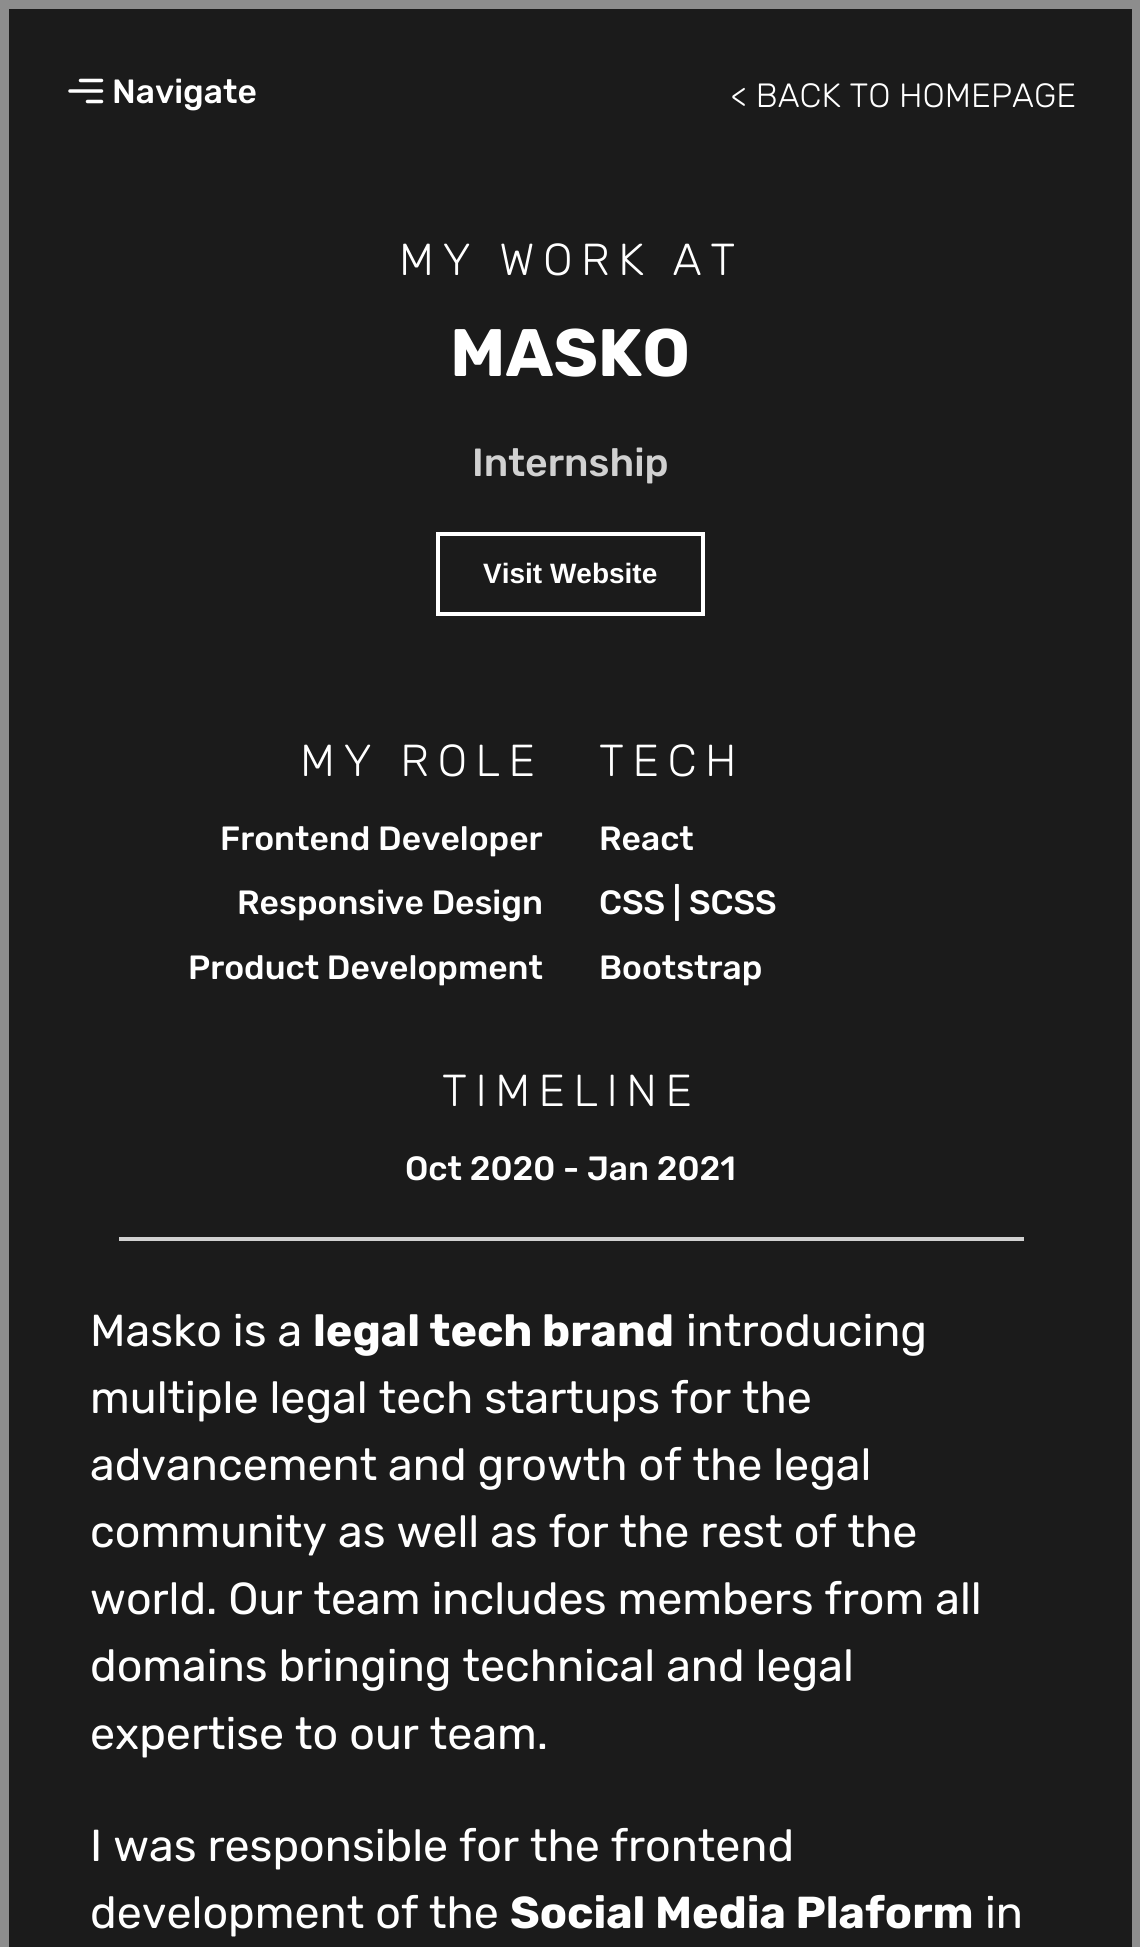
import math
import cairo


def write_spaced(ctx, x, y, s, letter, word):
	ctx.move_to(x, y)
	for ch in s:
		ctx.show_text(ch)
		ctx.rel_move_to(letter + word * (ch == ' '), 0)

def paste(ctx, path, x, y, w, h):
	ctx.save()
	ctx.set_source_surface(cairo.ImageSurface.create_from_png(path), x, y)
	ctx.rectangle(x, y, w, h)
	ctx.fill()
	ctx.restore()

def draw(ctx):
	ctx.set_source_rgb(0.106, 0.106, 0.106)
	ctx.paint()
	ctx.rectangle(4.5, 4.5, 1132, 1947)
	ctx.set_source_rgb(0.553, 0.553, 0.553)
	ctx.set_line_width(9)
	ctx.stroke()
	paste(ctx, 'media/1.png', 68, 78, 36, 26)
	ctx.select_font_face('Rubik Medium')
	ctx.set_font_size(33.6)
	ctx.set_source_rgb(1, 1, 1)
	ctx.move_to(112, 103)
	ctx.show_text('Navigate')
	ctx.select_font_face('Rubik Light')
	ctx.move_to(731, 107)
	ctx.show_text('< BACK TO HOMEPAGE')
	ctx.set_font_size(44.75)
	write_spaced(ctx, 399, 275, 'MY WORK AT', 8.5, 0)
	ctx.select_font_face('Rubik', cairo.FONT_SLANT_NORMAL, cairo.FONT_WEIGHT_BOLD)
	ctx.set_font_size(67)
	ctx.move_to(450, 376)
	ctx.show_text('MASKO')
	ctx.select_font_face('Rubik Medium')
	ctx.set_font_size(39.25)
	ctx.set_source_rgb(0.82, 0.82, 0.82)
	ctx.move_to(472, 476)
	ctx.show_text('Internship')
	ctx.rectangle(438, 534, 265, 80)
	ctx.set_source_rgb(1, 1, 1)
	ctx.set_line_width(4)
	ctx.stroke()
	ctx.select_font_face('Liberation Sans', cairo.FONT_SLANT_NORMAL, cairo.FONT_WEIGHT_BOLD)
	ctx.set_font_size(28)
	ctx.move_to(483, 583)
	ctx.show_text('Visit Website')
	ctx.select_font_face('Rubik Light')
	ctx.set_font_size(44.75)
	write_spaced(ctx, 300, 776, 'MY ROLE', 8.5, 0)
	ctx.select_font_face('Rubik Medium')
	ctx.set_font_size(33.6)
	for x, y, s in [
		(220, 850, 'Frontend Developer'),
		(237, 914, 'Responsive Design'),
		(188, 979, 'Product Development'),
	]:
		ctx.move_to(x, y)
		ctx.show_text(s)
	ctx.select_font_face('Rubik Light')
	ctx.set_font_size(44.75)
	write_spaced(ctx, 599, 776, 'TECH', 8.5, 0)
	ctx.select_font_face('Rubik Medium')
	ctx.set_font_size(33.6)
	for x, y, s in [
		(599, 850, 'React'),
		(599, 914, 'CSS | SCSS'),
		(599, 979, 'Bootstrap'),
	]:
		ctx.move_to(x, y)
		ctx.show_text(s)
	ctx.select_font_face('Rubik Light')
	ctx.set_font_size(44.75)
	write_spaced(ctx, 442, 1106, 'TIMELINE', 8.5, 0)
	ctx.select_font_face('Rubik Medium')
	ctx.set_font_size(33.6)
	ctx.move_to(405, 1180)
	ctx.show_text('Oct 2020 - Jan 2021')
	ctx.set_source_rgb(0.82, 0.82, 0.82)
	ctx.rectangle(119, 1237, 905, 4)
	ctx.fill()
	ctx.select_font_face('Rubik')
	ctx.set_font_size(44.75)
	ctx.set_source_rgb(1, 1, 1)
	ctx.move_to(90, 1346)
	ctx.show_text('Masko is a')
	ctx.select_font_face('Rubik', cairo.FONT_SLANT_NORMAL, cairo.FONT_WEIGHT_BOLD)
	ctx.move_to(313, 1346)
	ctx.show_text('legal tech brand')
	ctx.select_font_face('Rubik')
	for x, y, s in [
		(686, 1346, 'introducing'),
		(90, 1413, 'multiple legal tech startups for the'),
		(90, 1480, 'advancement and growth of the legal'),
		(90, 1547, 'community as well as for the rest of the'),
		(90, 1614, 'world. Our team includes members from all'),
		(90, 1681, 'domains bringing technical and legal'),
		(90, 1749, 'expertise to our team.'),
		(90, 1861, 'I was responsible for the frontend'),
		(90, 1928, 'development of the'),
	]:
		ctx.move_to(x, y)
		ctx.show_text(s)
	ctx.select_font_face('Rubik', cairo.FONT_SLANT_NORMAL, cairo.FONT_WEIGHT_BOLD)
	ctx.move_to(510, 1928)
	ctx.show_text('Social Media Plaform')
	ctx.select_font_face('Rubik')
	ctx.move_to(985, 1928)
	ctx.show_text('in')


surface = cairo.ImageSurface(cairo.FORMAT_RGB24, 1140, 1947)
ctx = cairo.Context(surface)
options = cairo.FontOptions()
options.set_hint_metrics(cairo.HINT_METRICS_OFF)
options.set_hint_style(cairo.HINT_STYLE_NONE)
ctx.set_font_options(options)
ctx.set_miter_limit(4)
draw(ctx)
surface.write_to_png('image.png')
